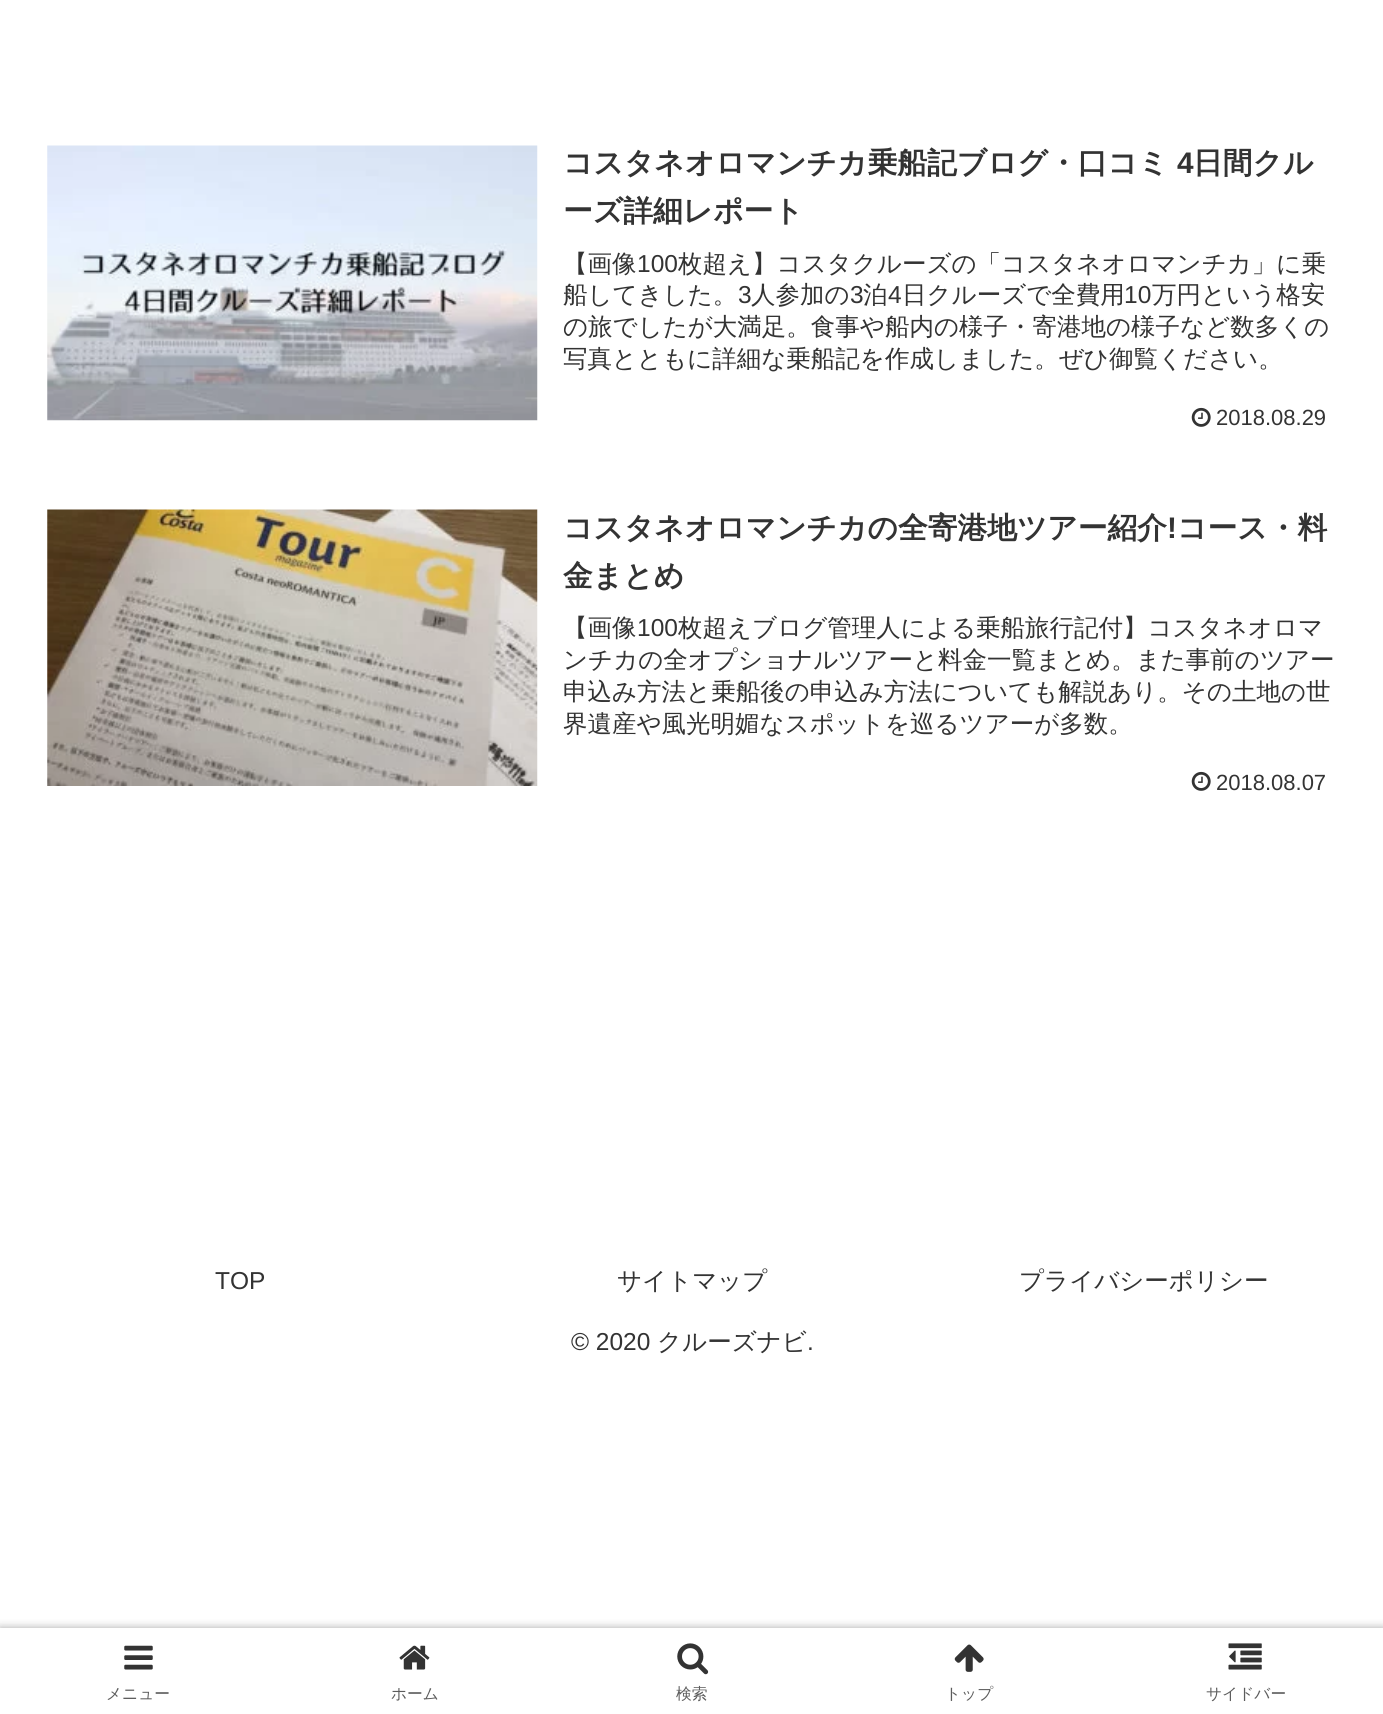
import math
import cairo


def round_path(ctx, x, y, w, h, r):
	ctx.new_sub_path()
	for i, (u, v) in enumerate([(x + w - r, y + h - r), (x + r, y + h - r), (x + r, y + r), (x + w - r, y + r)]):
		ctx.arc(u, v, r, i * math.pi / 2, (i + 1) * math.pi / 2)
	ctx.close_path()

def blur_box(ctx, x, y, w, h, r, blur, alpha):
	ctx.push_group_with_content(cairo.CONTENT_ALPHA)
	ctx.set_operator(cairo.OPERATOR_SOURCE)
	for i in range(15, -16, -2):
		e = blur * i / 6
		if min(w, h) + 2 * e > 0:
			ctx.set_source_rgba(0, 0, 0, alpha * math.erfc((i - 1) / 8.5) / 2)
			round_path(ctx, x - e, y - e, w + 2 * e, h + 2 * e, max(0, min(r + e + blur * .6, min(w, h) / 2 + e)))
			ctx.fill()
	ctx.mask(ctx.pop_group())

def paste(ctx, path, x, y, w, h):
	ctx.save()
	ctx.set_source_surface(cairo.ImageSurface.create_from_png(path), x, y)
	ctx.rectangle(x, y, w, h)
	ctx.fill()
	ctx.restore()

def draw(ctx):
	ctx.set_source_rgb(1, 1, 1)
	ctx.paint()
	paste(ctx, 'media/1.png', 47, 145, 491, 276)
	ctx.select_font_face('WenQuanYi Zen Hei', cairo.FONT_SLANT_NORMAL, cairo.FONT_WEIGHT_BOLD)
	ctx.set_font_size(29.75)
	ctx.set_source_rgb(0.2, 0.2, 0.2)
	ctx.move_to(563, 173)
	ctx.show_text('コスタネオロマンチカ乗船記ブログ・口コミ')
	ctx.select_font_face('Liberation Sans', cairo.FONT_SLANT_NORMAL, cairo.FONT_WEIGHT_BOLD)
	ctx.move_to(1177, 173)
	ctx.show_text('4')
	ctx.select_font_face('WenQuanYi Zen Hei', cairo.FONT_SLANT_NORMAL, cairo.FONT_WEIGHT_BOLD)
	ctx.move_to(1193, 173)
	ctx.show_text('日間クル')
	ctx.move_to(563, 221)
	ctx.show_text('ーズ詳細レポート')
	ctx.select_font_face('WenQuanYi Zen Hei Medium')
	ctx.set_font_size(24.5)
	ctx.move_to(563, 272)
	ctx.show_text('【画像')
	ctx.select_font_face('Liberation Sans')
	ctx.move_to(637, 272)
	ctx.show_text('100')
	ctx.select_font_face('WenQuanYi Zen Hei Medium')
	ctx.move_to(678, 272)
	ctx.show_text('枚超え】コスタクルーズの「コスタネオロマンチカ」に乗')
	ctx.move_to(563, 303)
	ctx.show_text('船してきした。')
	ctx.select_font_face('Liberation Sans')
	ctx.move_to(738, 303)
	ctx.show_text('3')
	ctx.select_font_face('WenQuanYi Zen Hei Medium')
	ctx.move_to(751, 303)
	ctx.show_text('人参加の')
	ctx.select_font_face('Liberation Sans')
	ctx.move_to(850, 303)
	ctx.show_text('3')
	ctx.select_font_face('WenQuanYi Zen Hei Medium')
	ctx.move_to(863, 303)
	ctx.show_text('泊')
	ctx.select_font_face('Liberation Sans')
	ctx.move_to(888, 303)
	ctx.show_text('4')
	ctx.select_font_face('WenQuanYi Zen Hei Medium')
	ctx.move_to(902, 303)
	ctx.show_text('日クルーズで全費用')
	ctx.select_font_face('Liberation Sans')
	ctx.move_to(1124, 303)
	ctx.show_text('10')
	ctx.select_font_face('WenQuanYi Zen Hei Medium')
	for x, y, s in [
		(1152, 303, '万円という格安'),
		(563, 335, 'の旅でしたが大満足。食事や船内の様子・寄港地の様子など数多くの'),
		(563, 367, '写真とともに詳細な乗船記を作成しました。ぜひ御覧ください。'),
	]:
		ctx.move_to(x, y)
		ctx.show_text(s)
	paste(ctx, 'media/2.png', 1191, 407, 20, 20)
	ctx.select_font_face('Liberation Sans')
	ctx.set_font_size(22)
	ctx.move_to(1216, 425)
	ctx.show_text('2018.08.29')
	paste(ctx, 'media/3.png', 47, 509, 491, 277)
	ctx.select_font_face('WenQuanYi Zen Hei', cairo.FONT_SLANT_NORMAL, cairo.FONT_WEIGHT_BOLD)
	ctx.set_font_size(29.75)
	ctx.move_to(563, 538)
	ctx.show_text('コスタネオロマンチカの全寄港地ツアー紹介')
	ctx.select_font_face('Liberation Sans', cairo.FONT_SLANT_NORMAL, cairo.FONT_WEIGHT_BOLD)
	ctx.move_to(1167, 538)
	ctx.show_text('!')
	ctx.select_font_face('WenQuanYi Zen Hei', cairo.FONT_SLANT_NORMAL, cairo.FONT_WEIGHT_BOLD)
	ctx.move_to(1177, 538)
	ctx.show_text('コース・料')
	ctx.move_to(563, 586)
	ctx.show_text('金まとめ')
	ctx.select_font_face('WenQuanYi Zen Hei Medium')
	ctx.set_font_size(24.5)
	ctx.move_to(563, 636)
	ctx.show_text('【画像')
	ctx.select_font_face('Liberation Sans')
	ctx.move_to(637, 636)
	ctx.show_text('100')
	ctx.select_font_face('WenQuanYi Zen Hei Medium')
	for x, y, s in [
		(678, 636, '枚超えブログ管理人による乗船旅行記付】コスタネオロマ'),
		(563, 668, 'ンチカの全オプショナルツアーと料金一覧まとめ。また事前のツアー'),
		(563, 700, '申込み方法と乗船後の申込み方法についても解説あり。その土地の世'),
		(563, 732, '界遺産や風光明媚なスポットを巡るツアーが多数。'),
	]:
		ctx.move_to(x, y)
		ctx.show_text(s)
	paste(ctx, 'media/2.png', 1191, 771, 20, 20)
	ctx.select_font_face('Liberation Sans')
	ctx.set_font_size(22)
	ctx.move_to(1216, 790)
	ctx.show_text('2018.08.07')
	ctx.set_font_size(24.5)
	ctx.move_to(215, 1289)
	ctx.show_text('TOP')
	ctx.select_font_face('WenQuanYi Zen Hei Medium')
	ctx.move_to(617, 1289)
	ctx.show_text('サイトマップ')
	ctx.move_to(1019, 1289)
	ctx.show_text('プライバシーポリシー')
	ctx.select_font_face('Liberation Sans')
	ctx.move_to(571, 1350)
	ctx.show_text('© 2020')
	ctx.select_font_face('WenQuanYi Zen Hei Medium')
	ctx.move_to(657, 1350)
	ctx.show_text('クルーズナビ')
	ctx.select_font_face('Liberation Sans')
	ctx.move_to(807, 1350)
	ctx.show_text('.')
	ctx.save()
	ctx.rectangle(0, 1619, 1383, 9)
	ctx.clip()
	ctx.set_source_rgb(0.663, 0.663, 0.663)
	blur_box(ctx, 0, 1628, 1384, 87, 0, 4.5, 1)
	ctx.restore()
	paste(ctx, 'media/4.png', 124, 1645, 29, 25)
	ctx.select_font_face('WenQuanYi Zen Hei Medium')
	ctx.set_font_size(15.75)
	ctx.set_source_rgb(0.361, 0.361, 0.361)
	ctx.move_to(106, 1699)
	ctx.show_text('メニュー')
	paste(ctx, 'media/5.png', 399, 1645, 31, 25)
	ctx.move_to(391, 1699)
	ctx.show_text('ホーム')
	paste(ctx, 'media/6.png', 677, 1643, 32, 32)
	ctx.move_to(676, 1699)
	ctx.show_text('検索')
	paste(ctx, 'media/7.png', 954, 1644, 30, 28)
	ctx.move_to(945, 1699)
	ctx.show_text('トップ')
	paste(ctx, 'media/8.png', 1228, 1643, 34, 27)
	ctx.move_to(1206, 1699)
	ctx.show_text('サイドバー')


surface = cairo.ImageSurface(cairo.FORMAT_RGB24, 1383, 1714)
ctx = cairo.Context(surface)
options = cairo.FontOptions()
options.set_hint_metrics(cairo.HINT_METRICS_OFF)
options.set_hint_style(cairo.HINT_STYLE_NONE)
ctx.set_font_options(options)
ctx.set_miter_limit(4)
draw(ctx)
surface.write_to_png('image.png')
